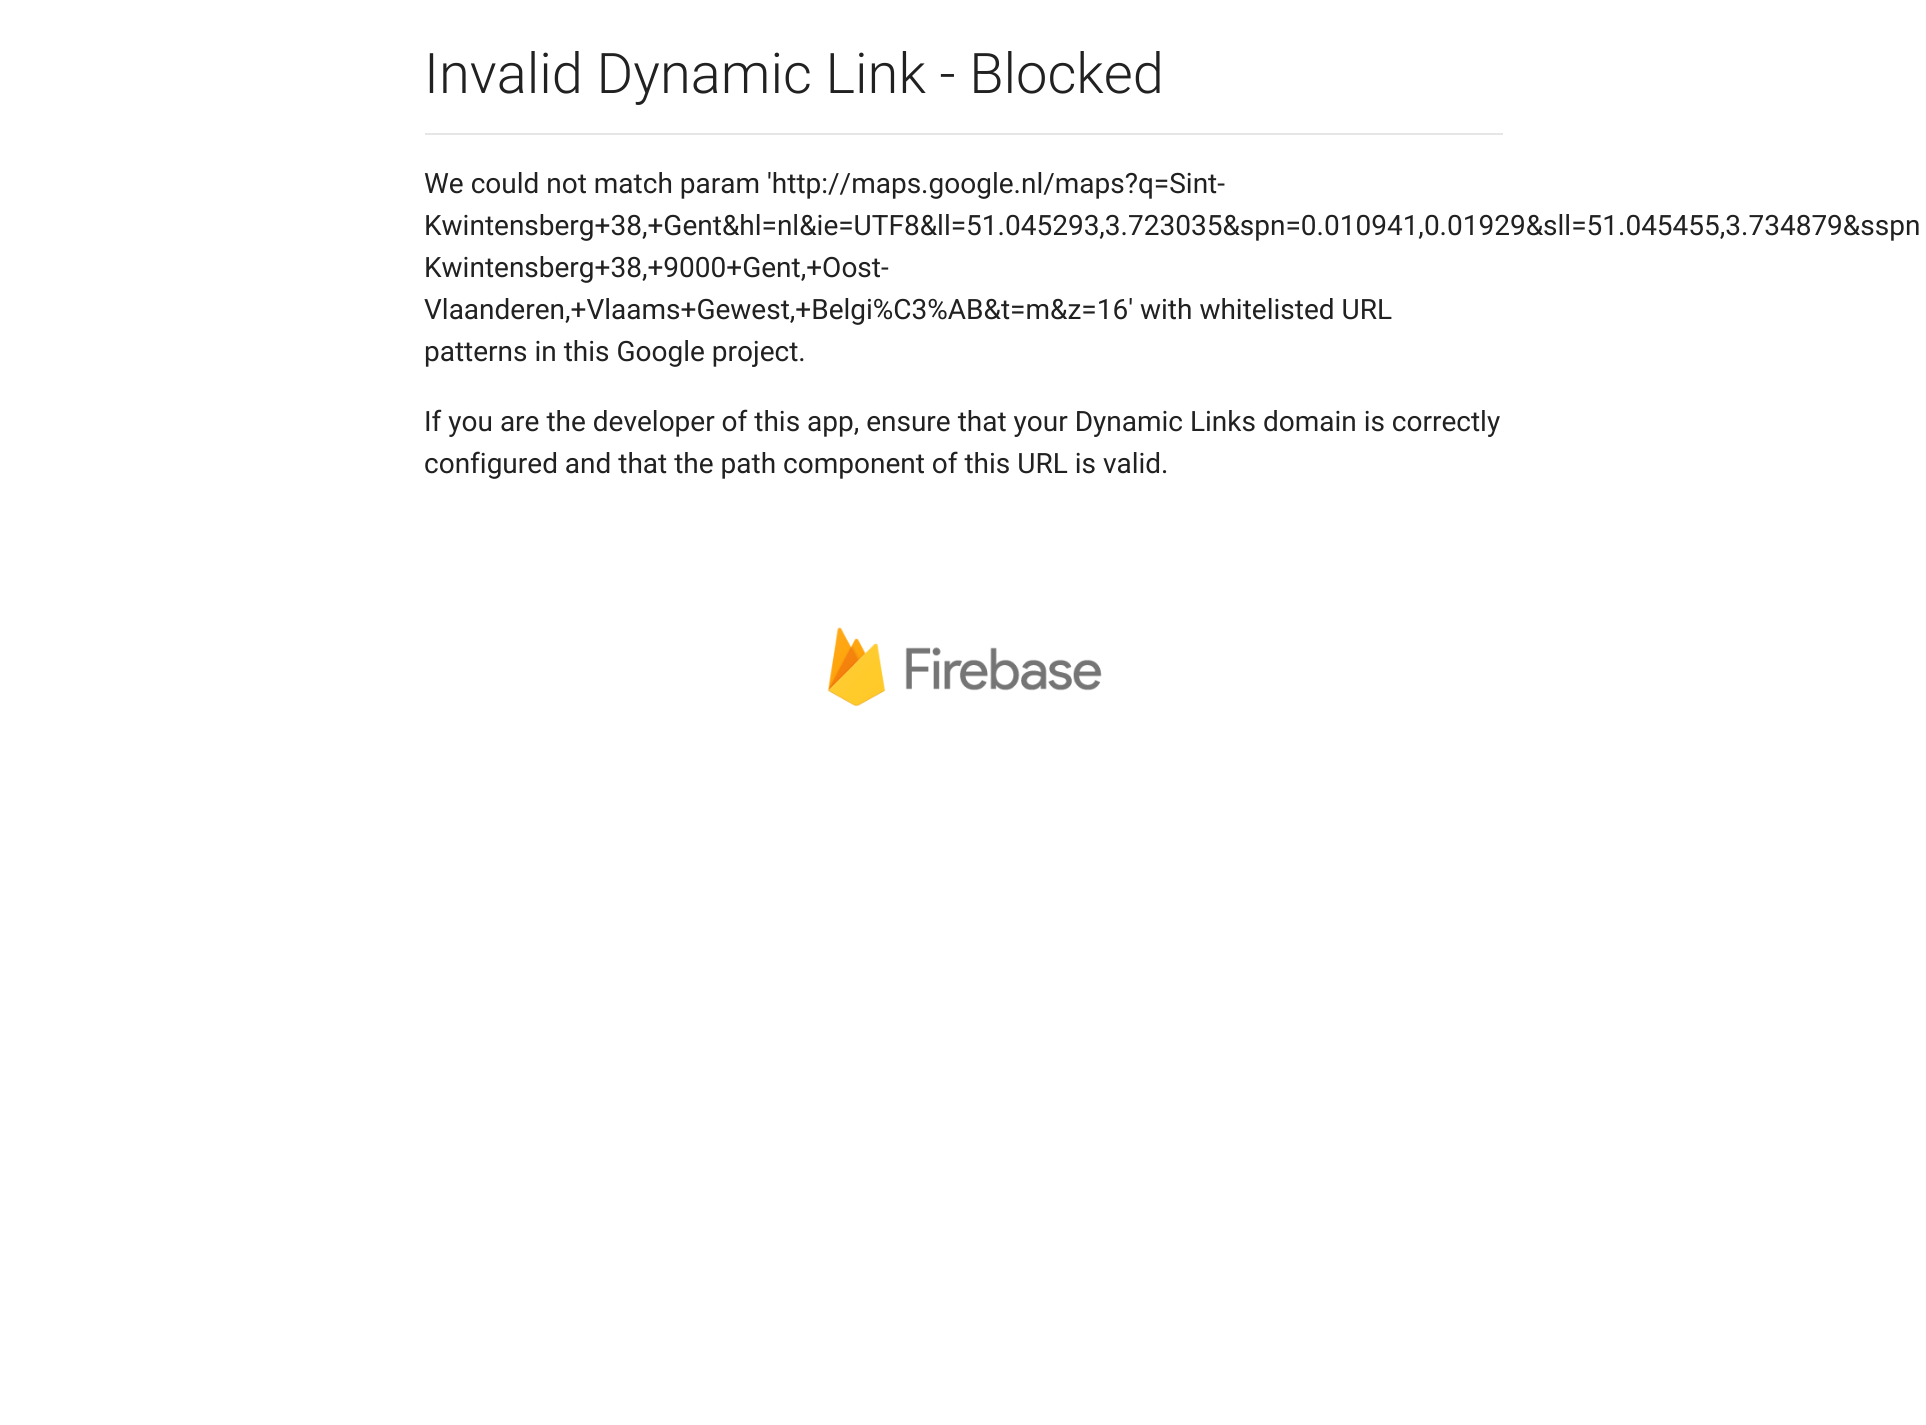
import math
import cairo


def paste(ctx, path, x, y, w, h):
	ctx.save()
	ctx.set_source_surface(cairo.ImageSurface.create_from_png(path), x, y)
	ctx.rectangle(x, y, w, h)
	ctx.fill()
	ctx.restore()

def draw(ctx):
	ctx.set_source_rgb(1, 1, 1)
	ctx.paint()
	ctx.set_source_rgb(0.902, 0.902, 0.902)
	ctx.rectangle(425, 133, 1078, 2)
	ctx.fill()
	ctx.select_font_face('Roboto Light')
	ctx.set_font_size(56)
	ctx.set_source_rgb(0.129, 0.129, 0.129)
	ctx.move_to(424, 93)
	ctx.show_text('Invalid Dynamic Link - Blocked')
	ctx.select_font_face('Roboto')
	ctx.set_font_size(28)
	for x, y, s in [
		(424, 193, 'We could not match param \'http://maps.google.nl/maps?q=Sint-'),
		(424, 235, 'Kwintensberg+38,+Gent&hl=nl&ie=UTF8&ll=51.045293,3.723035&spn=0.010941,0.01929&sll=51.045455,3.734879&sspn'),
		(424, 277, 'Kwintensberg+38,+9000+Gent,+Oost-'),
		(424, 319, 'Vlaanderen,+Vlaams+Gewest,+Belgi%C3%AB&t=m&z=16\' with whitelisted URL'),
		(424, 361, 'patterns in this Google project.'),
		(424, 431, 'If you are the developer of this app, ensure that your Dynamic Links domain is correctly'),
		(424, 473, 'configured and that the path component of this URL is valid.'),
	]:
		ctx.move_to(x, y)
		ctx.show_text(s)
	paste(ctx, 'media/1.png', 827, 627, 275, 80)


surface = cairo.ImageSurface(cairo.FORMAT_RGB24, 1926, 1425)
ctx = cairo.Context(surface)
options = cairo.FontOptions()
options.set_hint_metrics(cairo.HINT_METRICS_OFF)
options.set_hint_style(cairo.HINT_STYLE_NONE)
ctx.set_font_options(options)
ctx.set_miter_limit(4)
draw(ctx)
surface.write_to_png('image.png')
